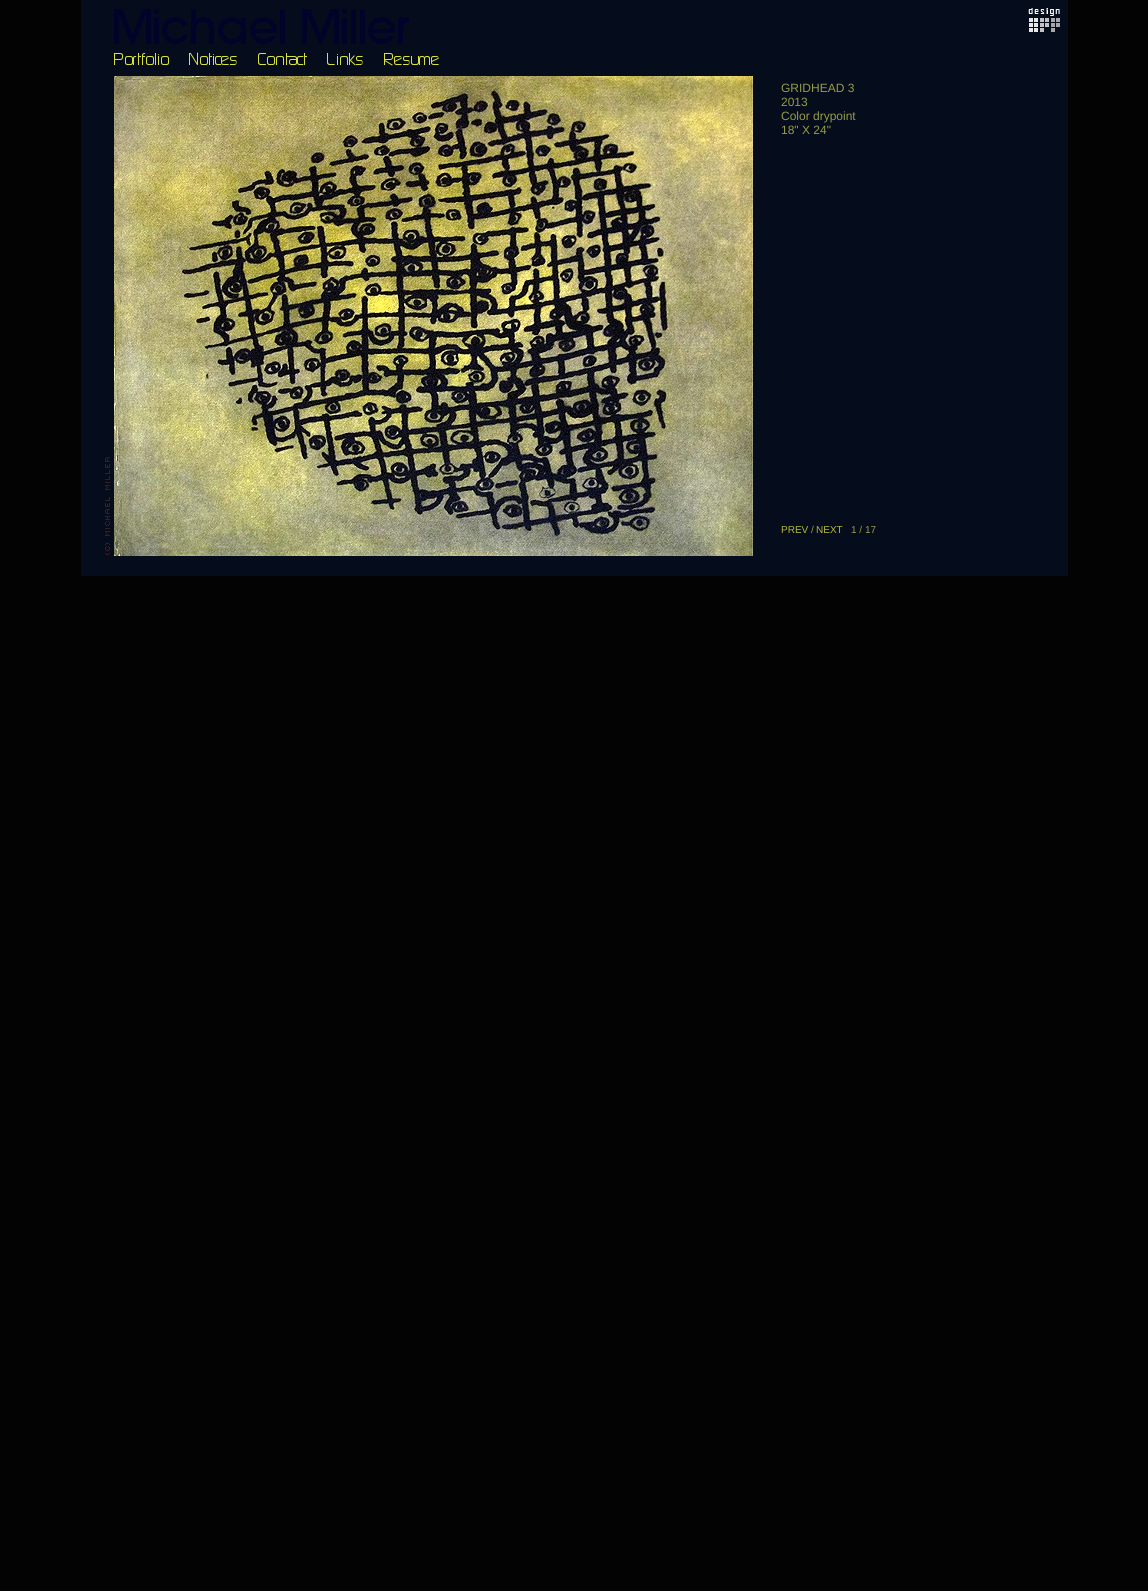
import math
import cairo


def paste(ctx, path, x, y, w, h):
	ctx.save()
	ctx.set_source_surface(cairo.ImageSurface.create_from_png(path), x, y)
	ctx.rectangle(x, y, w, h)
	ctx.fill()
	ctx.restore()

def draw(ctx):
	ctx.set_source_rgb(0.012, 0.012, 0.012)
	ctx.paint()
	ctx.set_source_rgb(0.02, 0.047, 0.11)
	ctx.rectangle(81, 0, 987, 576)
	ctx.fill()
	paste(ctx, 'media/1.png', 114, 9, 295, 35)
	paste(ctx, 'media/2.png', 1028, 8, 32, 24)
	paste(ctx, 'media/3.png', 114, 53, 55, 12)
	paste(ctx, 'media/4.png', 189, 52, 48, 13)
	paste(ctx, 'media/5.png', 258, 53, 49, 12)
	paste(ctx, 'media/6.png', 327, 53, 36, 13)
	paste(ctx, 'media/7.png', 384, 53, 55, 13)
	paste(ctx, 'media/8.png', 114, 76, 639, 480)
	ctx.select_font_face('Liberation Sans')
	ctx.set_font_size(12)
	ctx.set_source_rgb(0.592, 0.608, 0.275)
	for x, y, s in [
		(781, 92, 'GRIDHEAD 3'),
		(781, 106, '2013'),
		(781, 120, 'Color drypoint'),
		(781, 134, '18" X 24"'),
	]:
		ctx.move_to(x, y)
		ctx.show_text(s)
	paste(ctx, 'media/9.png', 105, 457, 5, 98)
	ctx.set_font_size(10)
	ctx.set_source_rgb(0.706, 0.729, 0.251)
	ctx.move_to(781, 533)
	ctx.show_text('PREV')
	ctx.set_source_rgb(0.592, 0.608, 0.275)
	ctx.move_to(811, 533)
	ctx.show_text('/')
	ctx.set_source_rgb(0.706, 0.729, 0.251)
	ctx.move_to(816, 533)
	ctx.show_text('NEXT')
	ctx.set_source_rgb(0.592, 0.608, 0.275)
	ctx.move_to(851, 533)
	ctx.show_text('1 / 17')


surface = cairo.ImageSurface(cairo.FORMAT_RGB24, 1148, 1591)
ctx = cairo.Context(surface)
options = cairo.FontOptions()
options.set_hint_metrics(cairo.HINT_METRICS_OFF)
options.set_hint_style(cairo.HINT_STYLE_NONE)
ctx.set_font_options(options)
ctx.set_miter_limit(4)
draw(ctx)
surface.write_to_png('image.png')
